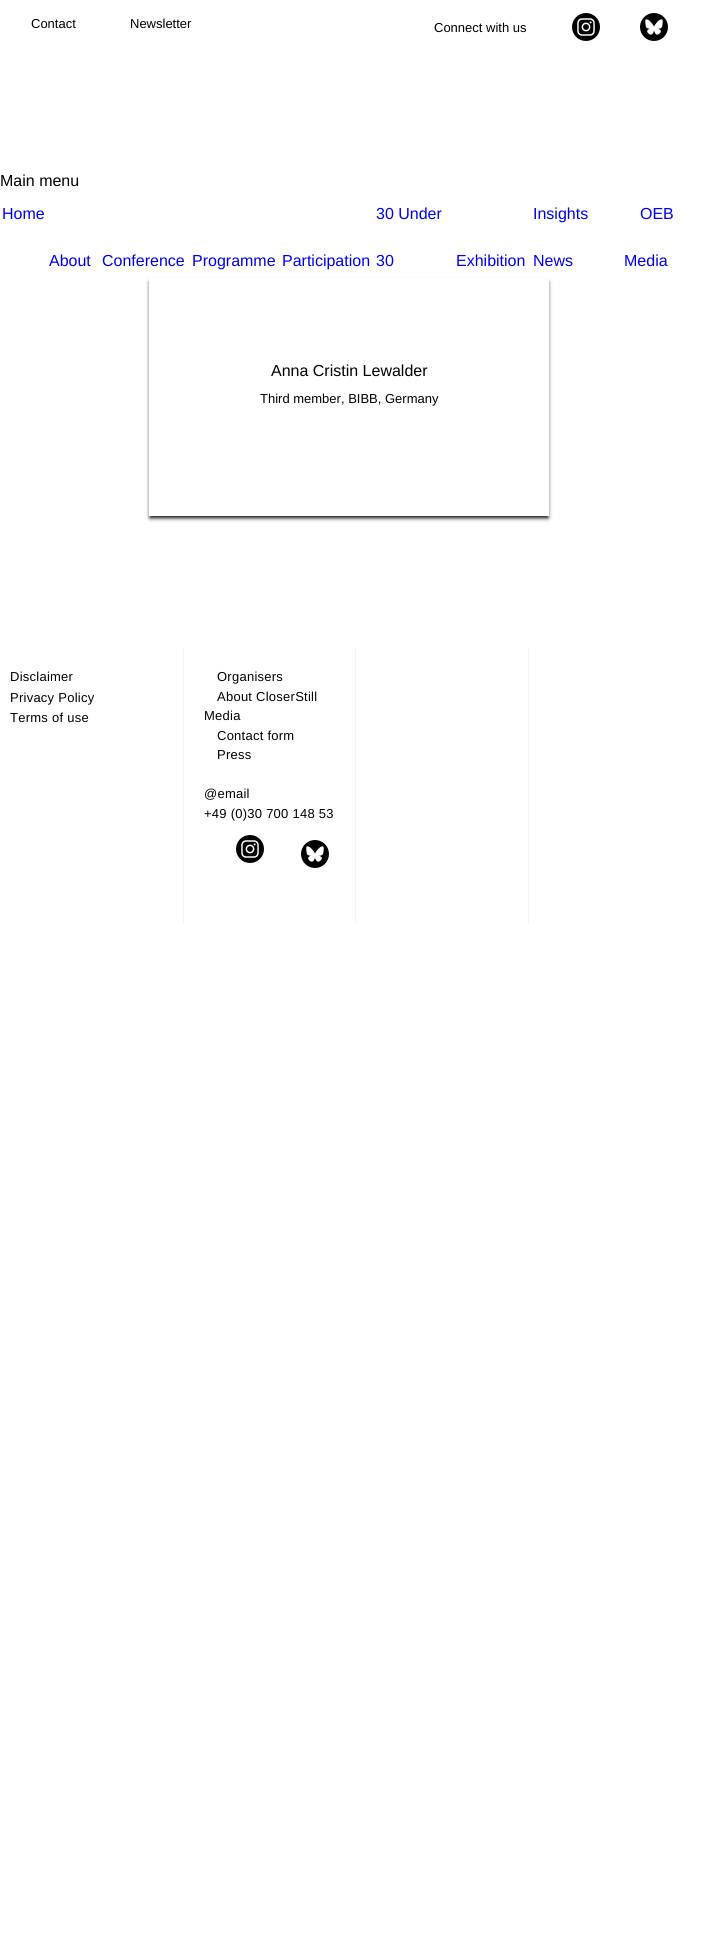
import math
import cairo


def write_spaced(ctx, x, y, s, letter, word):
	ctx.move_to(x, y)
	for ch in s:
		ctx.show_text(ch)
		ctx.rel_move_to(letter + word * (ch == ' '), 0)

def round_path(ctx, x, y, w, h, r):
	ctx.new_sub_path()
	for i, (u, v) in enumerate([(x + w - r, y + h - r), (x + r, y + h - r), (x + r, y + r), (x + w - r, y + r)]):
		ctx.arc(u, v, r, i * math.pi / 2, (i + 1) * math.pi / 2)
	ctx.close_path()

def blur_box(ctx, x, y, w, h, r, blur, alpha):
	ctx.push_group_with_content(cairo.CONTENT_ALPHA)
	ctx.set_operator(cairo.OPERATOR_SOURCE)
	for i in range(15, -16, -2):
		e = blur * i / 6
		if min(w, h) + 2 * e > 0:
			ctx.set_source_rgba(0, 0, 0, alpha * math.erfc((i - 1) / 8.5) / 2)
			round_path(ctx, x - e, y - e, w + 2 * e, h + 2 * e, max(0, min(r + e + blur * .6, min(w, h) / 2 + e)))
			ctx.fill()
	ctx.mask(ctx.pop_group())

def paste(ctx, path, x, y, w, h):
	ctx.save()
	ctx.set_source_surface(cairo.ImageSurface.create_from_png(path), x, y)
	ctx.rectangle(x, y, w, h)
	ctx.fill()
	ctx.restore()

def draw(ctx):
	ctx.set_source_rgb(1, 1, 1)
	ctx.paint()
	ctx.select_font_face('Liberation Sans')
	ctx.set_font_size(13)
	ctx.set_source_rgb(0, 0, 0)
	for x, y, s in [
		(31, 28, 'Contact'),
		(130, 28, 'Newsletter'),
		(434, 32, 'Connect with us'),
	]:
		ctx.move_to(x, y)
		ctx.show_text(s)
	paste(ctx, 'media/1.png', 572, 13, 28, 28)
	paste(ctx, 'media/2.png', 640, 13, 28, 28)
	ctx.set_font_size(16)
	ctx.move_to(0, 186)
	ctx.show_text('Main menu')
	ctx.set_source_rgb(0, 0, 0.933)
	for x, y, s in [
		(2, 219, 'Home'),
		(376, 219, '30 Under'),
		(376, 266, '30'),
		(533, 219, 'Insights'),
		(533, 266, 'News'),
		(640, 219, 'OEB'),
		(624, 266, 'Media'),
		(49, 266, 'About'),
		(102, 266, 'Conference'),
		(192, 266, 'Programme'),
		(282, 266, 'Participation'),
		(456, 266, 'Exhibition'),
	]:
		ctx.move_to(x, y)
		ctx.show_text(s)
	ctx.save()
	ctx.set_fill_rule(cairo.FILL_RULE_EVEN_ODD)
	ctx.new_path()
	ctx.move_to(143, 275)
	ctx.line_to(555, 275)
	ctx.line_to(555, 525)
	ctx.line_to(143, 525)
	ctx.close_path()
	ctx.move_to(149, 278)
	ctx.line_to(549, 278)
	ctx.line_to(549, 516)
	ctx.line_to(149, 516)
	ctx.close_path()
	ctx.clip()
	ctx.set_source_rgb(0, 0, 0)
	blur_box(ctx, 150, 282, 398, 236, 0, 2, 0.98)
	ctx.restore()
	ctx.set_source_rgb(0, 0, 0)
	ctx.move_to(271, 376)
	ctx.show_text('Anna Cristin Lewalder')
	ctx.set_font_size(13)
	ctx.move_to(260, 403)
	ctx.show_text('Third member, BIBB, Germany')
	for x, y, s in [
		(10, 681, 'Disclaimer'),
		(10, 702, 'Privacy Policy'),
		(10, 722, 'Terms of use'),
	]:
		write_spaced(ctx, x, y, s, 0.25, 0)
	ctx.set_source_rgb(0.957, 0.953, 0.941)
	ctx.rectangle(183, 647, 1, 276)
	ctx.fill()
	ctx.set_source_rgb(0, 0, 0)
	for x, y, s in [
		(217, 681, 'Organisers'),
		(217, 701, 'About CloserStill'),
		(204, 720, 'Media'),
		(217, 740, 'Contact form'),
		(217, 759, 'Press'),
		(204, 798, '@email'),
		(204, 818, '+49 (0)30 700 148 53'),
	]:
		write_spaced(ctx, x, y, s, 0.25, 0)
	paste(ctx, 'media/1.png', 236, 835, 28, 28)
	paste(ctx, 'media/2.png', 301, 840, 28, 28)
	ctx.set_source_rgb(0.957, 0.953, 0.941)
	ctx.rectangle(355, 647, 1, 276)
	ctx.fill()
	ctx.rectangle(528, 647, 1, 276)
	ctx.fill()


surface = cairo.ImageSurface(cairo.FORMAT_RGB24, 710, 1935)
ctx = cairo.Context(surface)
options = cairo.FontOptions()
options.set_hint_metrics(cairo.HINT_METRICS_OFF)
options.set_hint_style(cairo.HINT_STYLE_NONE)
ctx.set_font_options(options)
ctx.set_miter_limit(4)
draw(ctx)
surface.write_to_png('image.png')
